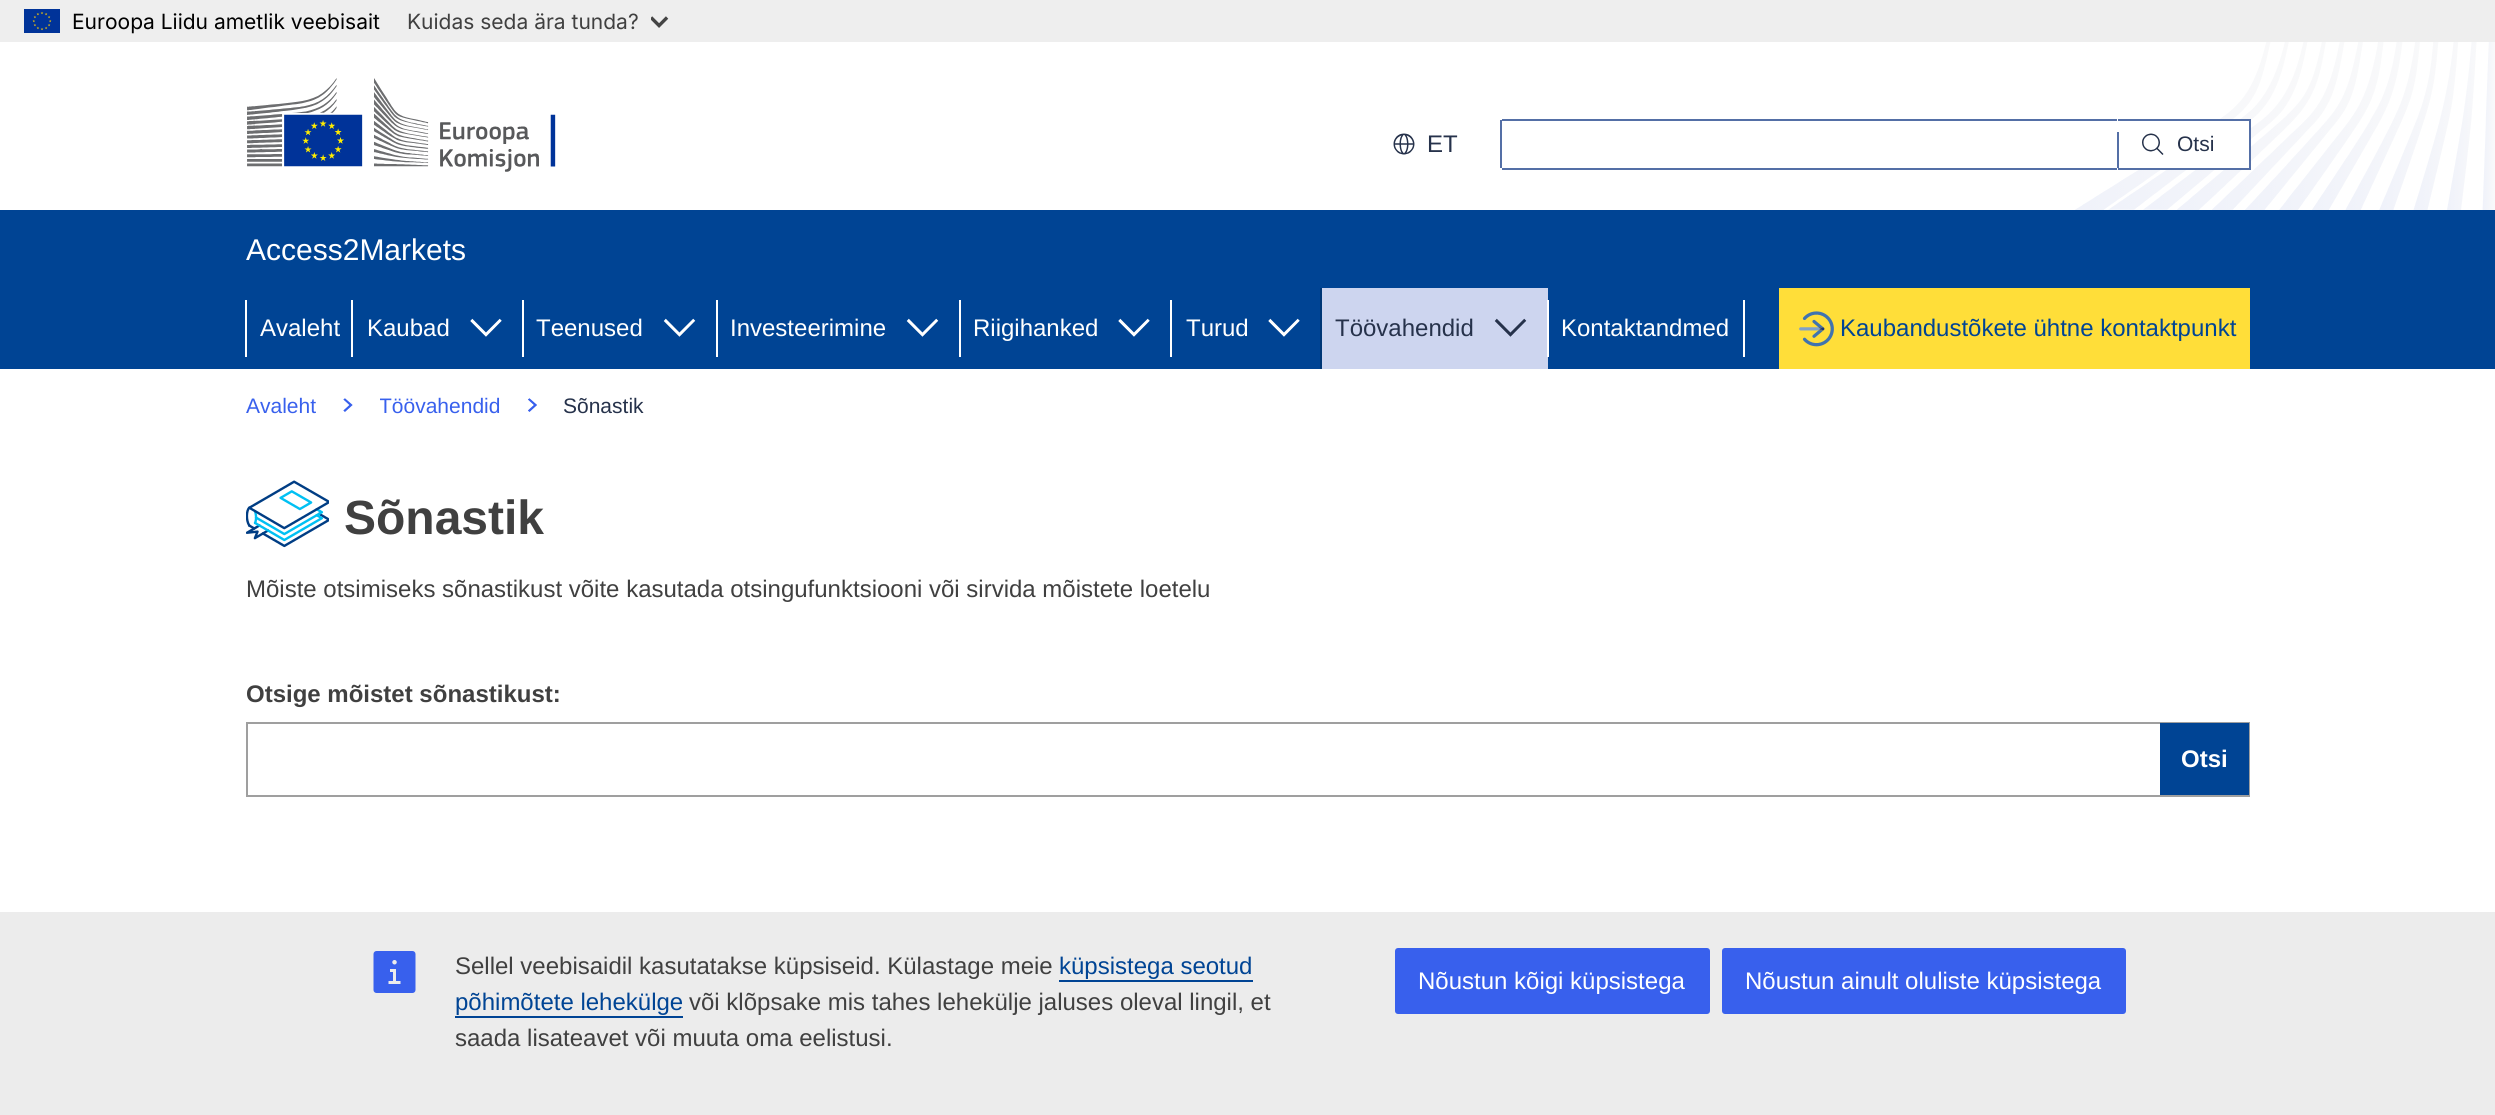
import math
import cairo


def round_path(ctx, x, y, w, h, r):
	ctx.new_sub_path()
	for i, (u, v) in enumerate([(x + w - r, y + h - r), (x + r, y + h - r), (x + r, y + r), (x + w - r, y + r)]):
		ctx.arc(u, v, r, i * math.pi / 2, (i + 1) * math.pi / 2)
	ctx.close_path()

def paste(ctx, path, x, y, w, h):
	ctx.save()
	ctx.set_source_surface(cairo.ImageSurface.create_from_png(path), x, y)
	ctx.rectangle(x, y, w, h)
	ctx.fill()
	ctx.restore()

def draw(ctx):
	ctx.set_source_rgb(1, 1, 1)
	ctx.paint()
	ctx.set_source_rgb(0.933, 0.933, 0.933)
	ctx.rectangle(0, 0, 2495, 42)
	ctx.fill()
	paste(ctx, 'media/1.png', 24, 9, 36, 24)
	ctx.select_font_face('Inter')
	ctx.set_font_size(21)
	ctx.set_source_rgb(0, 0, 0)
	ctx.move_to(72, 29)
	ctx.show_text('Euroopa Liidu ametlik veebisait')
	ctx.set_source_rgb(0.251, 0.251, 0.251)
	ctx.move_to(407, 29)
	ctx.show_text('Kuidas seda ära tunda?')
	paste(ctx, 'media/2.png', 651, 16, 18, 12)
	paste(ctx, 'media/3.png', 2075, 42, 420, 168)
	paste(ctx, 'media/4.png', 247, 78, 309, 94)
	paste(ctx, 'media/5.png', 1393, 133, 22, 22)
	ctx.select_font_face('Liberation Sans')
	ctx.set_font_size(24)
	ctx.set_source_rgb(0.149, 0.196, 0.294)
	ctx.move_to(1427, 152)
	ctx.show_text('ET')
	ctx.set_source_rgb(1, 1, 1)
	ctx.rectangle(2139, 119, 110, 51)
	ctx.fill()
	ctx.set_source_rgb(0.329, 0.435, 0.651)
	ctx.rectangle(1502, 119, 615, 2)
	ctx.rectangle(1502, 168, 615, 2)
	ctx.rectangle(1500, 120, 2, 48)
	ctx.rectangle(2118, 119, 132, 2)
	ctx.rectangle(2249, 119, 2, 51)
	ctx.rectangle(2118, 168, 132, 2)
	ctx.rectangle(2117, 132, 2, 36)
	ctx.fill()
	paste(ctx, 'media/6.png', 2142, 133, 22, 22)
	ctx.set_font_size(21)
	ctx.set_source_rgb(0.149, 0.196, 0.294)
	ctx.move_to(2177, 151)
	ctx.show_text('Otsi')
	ctx.set_source_rgb(0, 0.267, 0.58)
	ctx.rectangle(0, 210, 2495, 159)
	ctx.fill()
	ctx.set_font_size(30)
	ctx.set_source_rgb(1, 1, 1)
	ctx.move_to(246, 260)
	ctx.show_text('Access2Markets')
	ctx.rectangle(245, 300, 2, 57)
	ctx.fill()
	ctx.set_font_size(24)
	ctx.move_to(260, 336)
	ctx.show_text('Avaleht')
	ctx.rectangle(351, 300, 2, 57)
	ctx.fill()
	ctx.move_to(367, 336)
	ctx.show_text('Kaubad')
	paste(ctx, 'media/7.png', 470, 318, 32, 19)
	ctx.rectangle(522, 300, 2, 57)
	ctx.fill()
	ctx.move_to(536, 336)
	ctx.show_text('Teenused')
	paste(ctx, 'media/8.png', 663, 318, 33, 19)
	ctx.rectangle(716, 300, 2, 57)
	ctx.fill()
	ctx.move_to(730, 336)
	ctx.show_text('Investeerimine')
	paste(ctx, 'media/8.png', 906, 318, 33, 19)
	ctx.rectangle(959, 300, 2, 57)
	ctx.fill()
	ctx.move_to(973, 336)
	ctx.show_text('Riigihanked')
	paste(ctx, 'media/7.png', 1118, 318, 32, 19)
	ctx.rectangle(1170, 300, 2, 57)
	ctx.fill()
	ctx.move_to(1186, 336)
	ctx.show_text('Turud')
	paste(ctx, 'media/9.png', 1268, 318, 32, 19)
	ctx.set_source_rgb(0, 0.216, 0.463)
	ctx.rectangle(1320, 288, 2, 81)
	ctx.fill()
	ctx.set_source_rgb(0.804, 0.835, 0.937)
	ctx.rectangle(1322, 288, 226, 81)
	ctx.fill()
	ctx.set_source_rgb(0.149, 0.196, 0.294)
	ctx.move_to(1335, 336)
	ctx.show_text('Töövahendid')
	paste(ctx, 'media/10.png', 1494, 318, 33, 19)
	ctx.set_source_rgb(1, 1, 1)
	ctx.rectangle(1547, 300, 2, 57)
	ctx.fill()
	ctx.move_to(1561, 336)
	ctx.show_text('Kontaktandmed')
	ctx.rectangle(1743, 300, 2, 57)
	ctx.fill()
	ctx.set_source_rgb(1, 0.871, 0.224)
	ctx.rectangle(1779, 288, 471, 81)
	ctx.fill()
	paste(ctx, 'media/11.png', 1799, 311, 35, 36)
	ctx.set_source_rgb(0, 0.267, 0.58)
	ctx.move_to(1840, 336)
	ctx.show_text('Kaubandustõkete ühtne kontaktpunkt')
	ctx.set_font_size(21)
	ctx.set_source_rgb(0.22, 0.376, 0.929)
	ctx.move_to(246, 413)
	ctx.show_text('Avaleht')
	paste(ctx, 'media/12.png', 343, 398, 10, 14)
	ctx.save()
	ctx.rectangle(380, 393, 121, 24)
	ctx.clip()
	ctx.move_to(379, 413)
	ctx.show_text('Töövahendid')
	ctx.restore()
	paste(ctx, 'media/13.png', 528, 398, 9, 14)
	ctx.set_source_rgb(0.149, 0.196, 0.294)
	ctx.move_to(563, 413)
	ctx.show_text('Sõnastik')
	paste(ctx, 'media/14.png', 246, 480, 83, 68)
	ctx.select_font_face('Liberation Sans', cairo.FONT_SLANT_NORMAL, cairo.FONT_WEIGHT_BOLD)
	ctx.set_font_size(48)
	ctx.set_source_rgb(0.251, 0.251, 0.251)
	ctx.move_to(344, 534)
	ctx.show_text('Sõnastik')
	ctx.select_font_face('Liberation Sans')
	ctx.set_font_size(24)
	ctx.move_to(246, 597)
	ctx.show_text('Mõiste otsimiseks sõnastikust võite kasutada otsingufunktsiooni või sirvida mõistete loetelu')
	ctx.select_font_face('Liberation Sans', cairo.FONT_SLANT_NORMAL, cairo.FONT_WEIGHT_BOLD)
	ctx.move_to(246, 702)
	ctx.show_text('Otsige mõistet sõnastikust:')
	ctx.rectangle(247, 723, 2002, 73)
	ctx.set_source_rgb(0.624, 0.624, 0.624)
	ctx.stroke()
	ctx.set_source_rgb(0, 0.267, 0.58)
	ctx.rectangle(2160, 723, 89, 72)
	ctx.fill()
	ctx.set_source_rgb(1, 1, 1)
	ctx.move_to(2181, 767)
	ctx.show_text('Otsi')
	ctx.set_source_rgb(0.922, 0.922, 0.922)
	ctx.rectangle(0, 912, 2495, 203)
	ctx.fill()
	paste(ctx, 'media/15.png', 373, 951, 43, 42)
	ctx.select_font_face('Liberation Sans')
	ctx.set_source_rgb(0.251, 0.251, 0.251)
	ctx.move_to(455, 974)
	ctx.show_text('Sellel veebisaidil kasutatakse küpsiseid. Külastage meie')
	ctx.set_source_rgb(0, 0.267, 0.58)
	ctx.move_to(1059, 974)
	ctx.show_text('küpsistega seotud')
	ctx.rectangle(1059, 980, 194, 2)
	ctx.fill()
	ctx.move_to(455, 1010)
	ctx.show_text('põhimõtete lehekülge')
	ctx.rectangle(455, 1016, 228, 2)
	ctx.fill()
	ctx.set_source_rgb(0.251, 0.251, 0.251)
	ctx.move_to(689, 1010)
	ctx.show_text('või klõpsake mis tahes lehekülje jaluses oleval lingil, et')
	ctx.move_to(455, 1046)
	ctx.show_text('saada lisateavet või muuta oma eelistusi.')
	ctx.set_source_rgb(0.22, 0.376, 0.929)
	round_path(ctx, 1395, 948, 315, 66, 3)
	ctx.fill()
	ctx.set_source_rgb(1, 1, 1)
	ctx.move_to(1418, 989)
	ctx.show_text('Nõustun kõigi küpsistega')
	ctx.set_source_rgb(0.22, 0.376, 0.929)
	round_path(ctx, 1722, 948, 404, 66, 3)
	ctx.fill()
	ctx.set_source_rgb(1, 1, 1)
	ctx.move_to(1745, 989)
	ctx.show_text('Nõustun ainult oluliste küpsistega')


surface = cairo.ImageSurface(cairo.FORMAT_RGB24, 2495, 1115)
ctx = cairo.Context(surface)
options = cairo.FontOptions()
options.set_hint_metrics(cairo.HINT_METRICS_OFF)
options.set_hint_style(cairo.HINT_STYLE_NONE)
ctx.set_font_options(options)
ctx.set_miter_limit(4)
draw(ctx)
surface.write_to_png('image.png')
